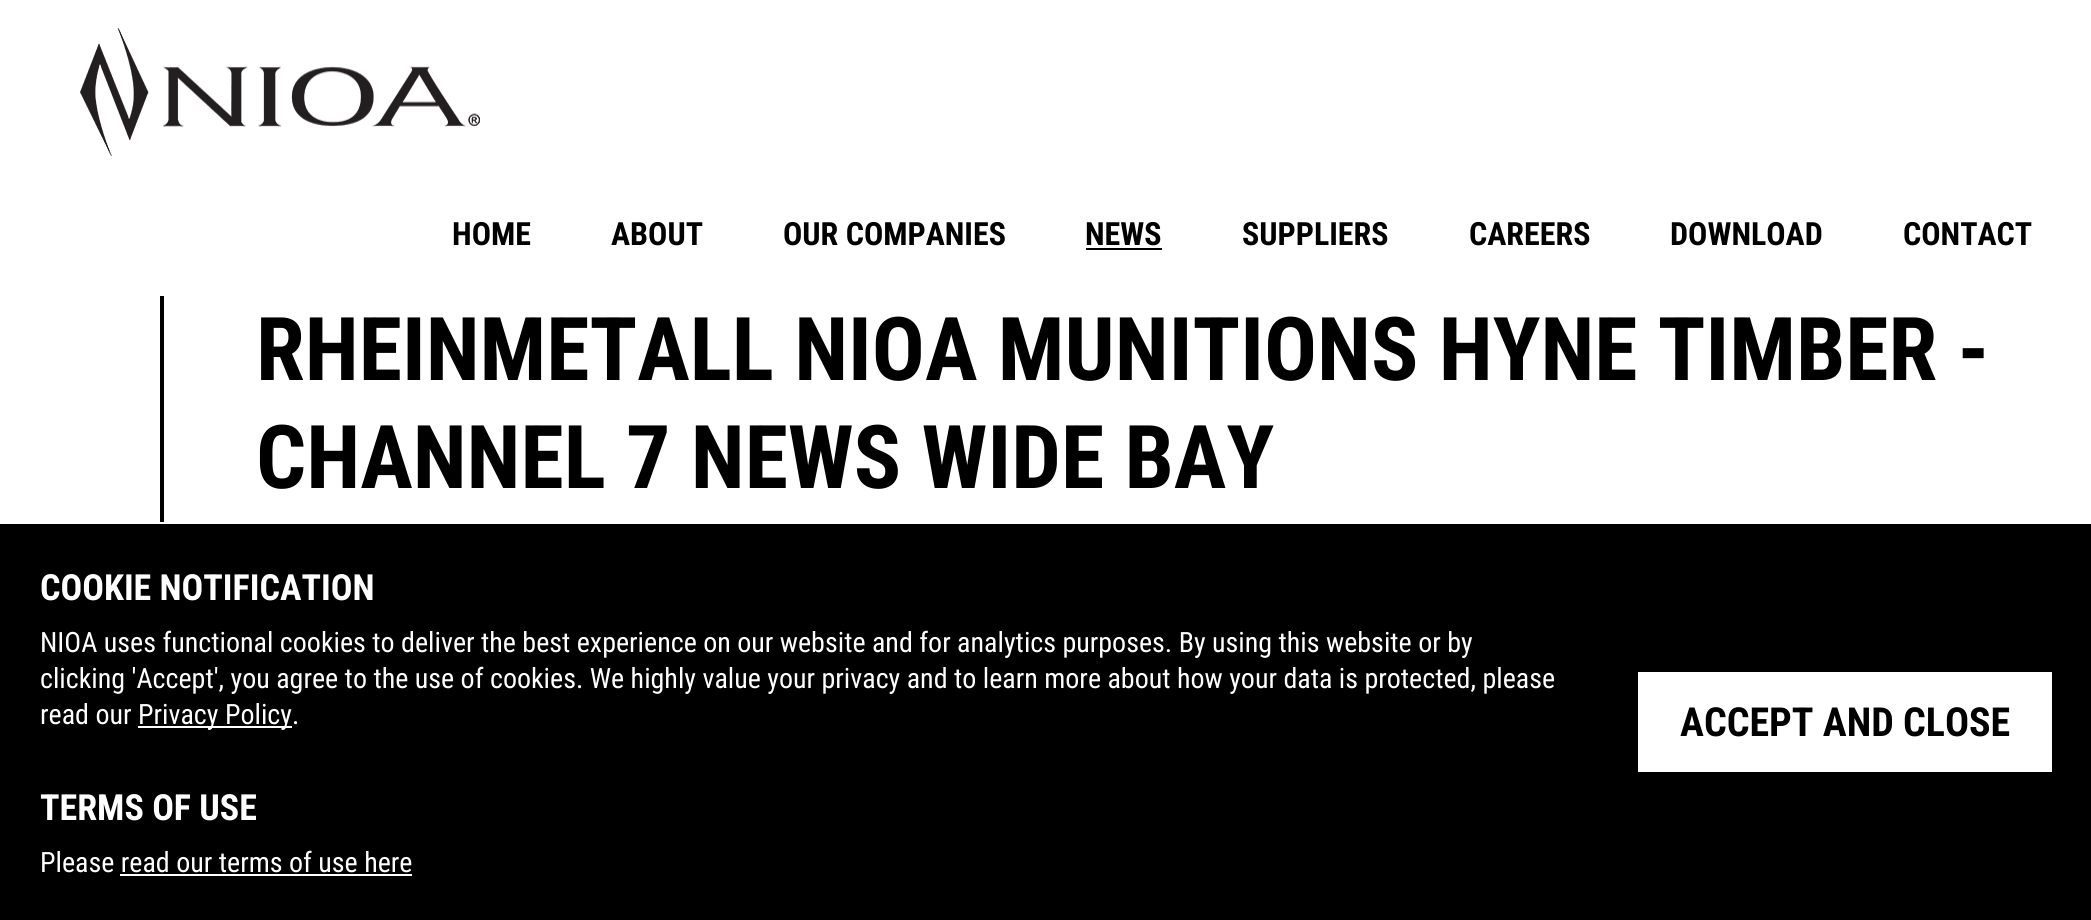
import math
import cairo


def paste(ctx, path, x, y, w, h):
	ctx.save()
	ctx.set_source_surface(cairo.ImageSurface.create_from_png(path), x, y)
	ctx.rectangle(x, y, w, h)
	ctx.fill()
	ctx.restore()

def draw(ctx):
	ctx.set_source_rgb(1, 1, 1)
	ctx.paint()
	paste(ctx, 'media/1.png', 80, 28, 400, 128)
	ctx.select_font_face('Roboto Condensed', cairo.FONT_SLANT_NORMAL, cairo.FONT_WEIGHT_BOLD)
	ctx.set_font_size(32)
	ctx.set_source_rgb(0, 0, 0)
	for x, y, s in [
		(452, 245, 'HOME'),
		(611, 245, 'ABOUT'),
		(783, 245, 'OUR COMPANIES'),
		(1085, 245, 'NEWS'),
	]:
		ctx.move_to(x, y)
		ctx.show_text(s)
	ctx.rectangle(1086, 248, 76, 2)
	ctx.fill()
	for x, y, s in [
		(1242, 245, 'SUPPLIERS'),
		(1469, 245, 'CAREERS'),
		(1670, 245, 'DOWNLOAD'),
		(1903, 245, 'CONTACT'),
	]:
		ctx.move_to(x, y)
		ctx.show_text(s)
	ctx.rectangle(160, 296, 4, 226)
	ctx.fill()
	ctx.set_font_size(88)
	ctx.move_to(256, 380)
	ctx.show_text('RHEINMETALL NIOA MUNITIONS HYNE TIMBER -')
	ctx.move_to(256, 488)
	ctx.show_text('CHANNEL 7 NEWS WIDE BAY')
	ctx.rectangle(0, 524, 2091, 396)
	ctx.fill()
	ctx.set_font_size(36)
	ctx.set_source_rgb(1, 1, 1)
	ctx.move_to(40, 600)
	ctx.show_text('COOKIE NOTIFICATION')
	ctx.select_font_face('Roboto Condensed')
	ctx.set_font_size(28)
	for x, y, s in [
		(40, 652, 'NIOA uses functional cookies to deliver the best experience on our website and for analytics purposes. By using this website or by'),
		(40, 688, 'clicking \'Accept\', you agree to the use of cookies. We highly value your privacy and to learn more about how your data is protected, please'),
		(40, 724, 'read our'),
	]:
		ctx.move_to(x, y)
		ctx.show_text(s)
	ctx.rectangle(138, 726, 154, 2)
	ctx.fill()
	ctx.move_to(138, 724)
	ctx.show_text('Privacy Policy.')
	ctx.select_font_face('Roboto Condensed', cairo.FONT_SLANT_NORMAL, cairo.FONT_WEIGHT_BOLD)
	ctx.set_font_size(36)
	ctx.move_to(40, 820)
	ctx.show_text('TERMS OF USE')
	ctx.select_font_face('Roboto Condensed')
	ctx.set_font_size(28)
	ctx.move_to(40, 872)
	ctx.show_text('Please read our terms of use here')
	ctx.rectangle(120, 874, 292, 2)
	ctx.fill()
	ctx.rectangle(1638, 672, 414, 100)
	ctx.fill()
	ctx.select_font_face('Roboto Condensed', cairo.FONT_SLANT_NORMAL, cairo.FONT_WEIGHT_BOLD)
	ctx.set_font_size(40)
	ctx.set_source_rgb(0, 0, 0)
	ctx.move_to(1680, 736)
	ctx.show_text('ACCEPT AND CLOSE')


surface = cairo.ImageSurface(cairo.FORMAT_RGB24, 2091, 920)
ctx = cairo.Context(surface)
options = cairo.FontOptions()
options.set_hint_metrics(cairo.HINT_METRICS_OFF)
options.set_hint_style(cairo.HINT_STYLE_NONE)
ctx.set_font_options(options)
ctx.set_miter_limit(4)
draw(ctx)
surface.write_to_png('image.png')
